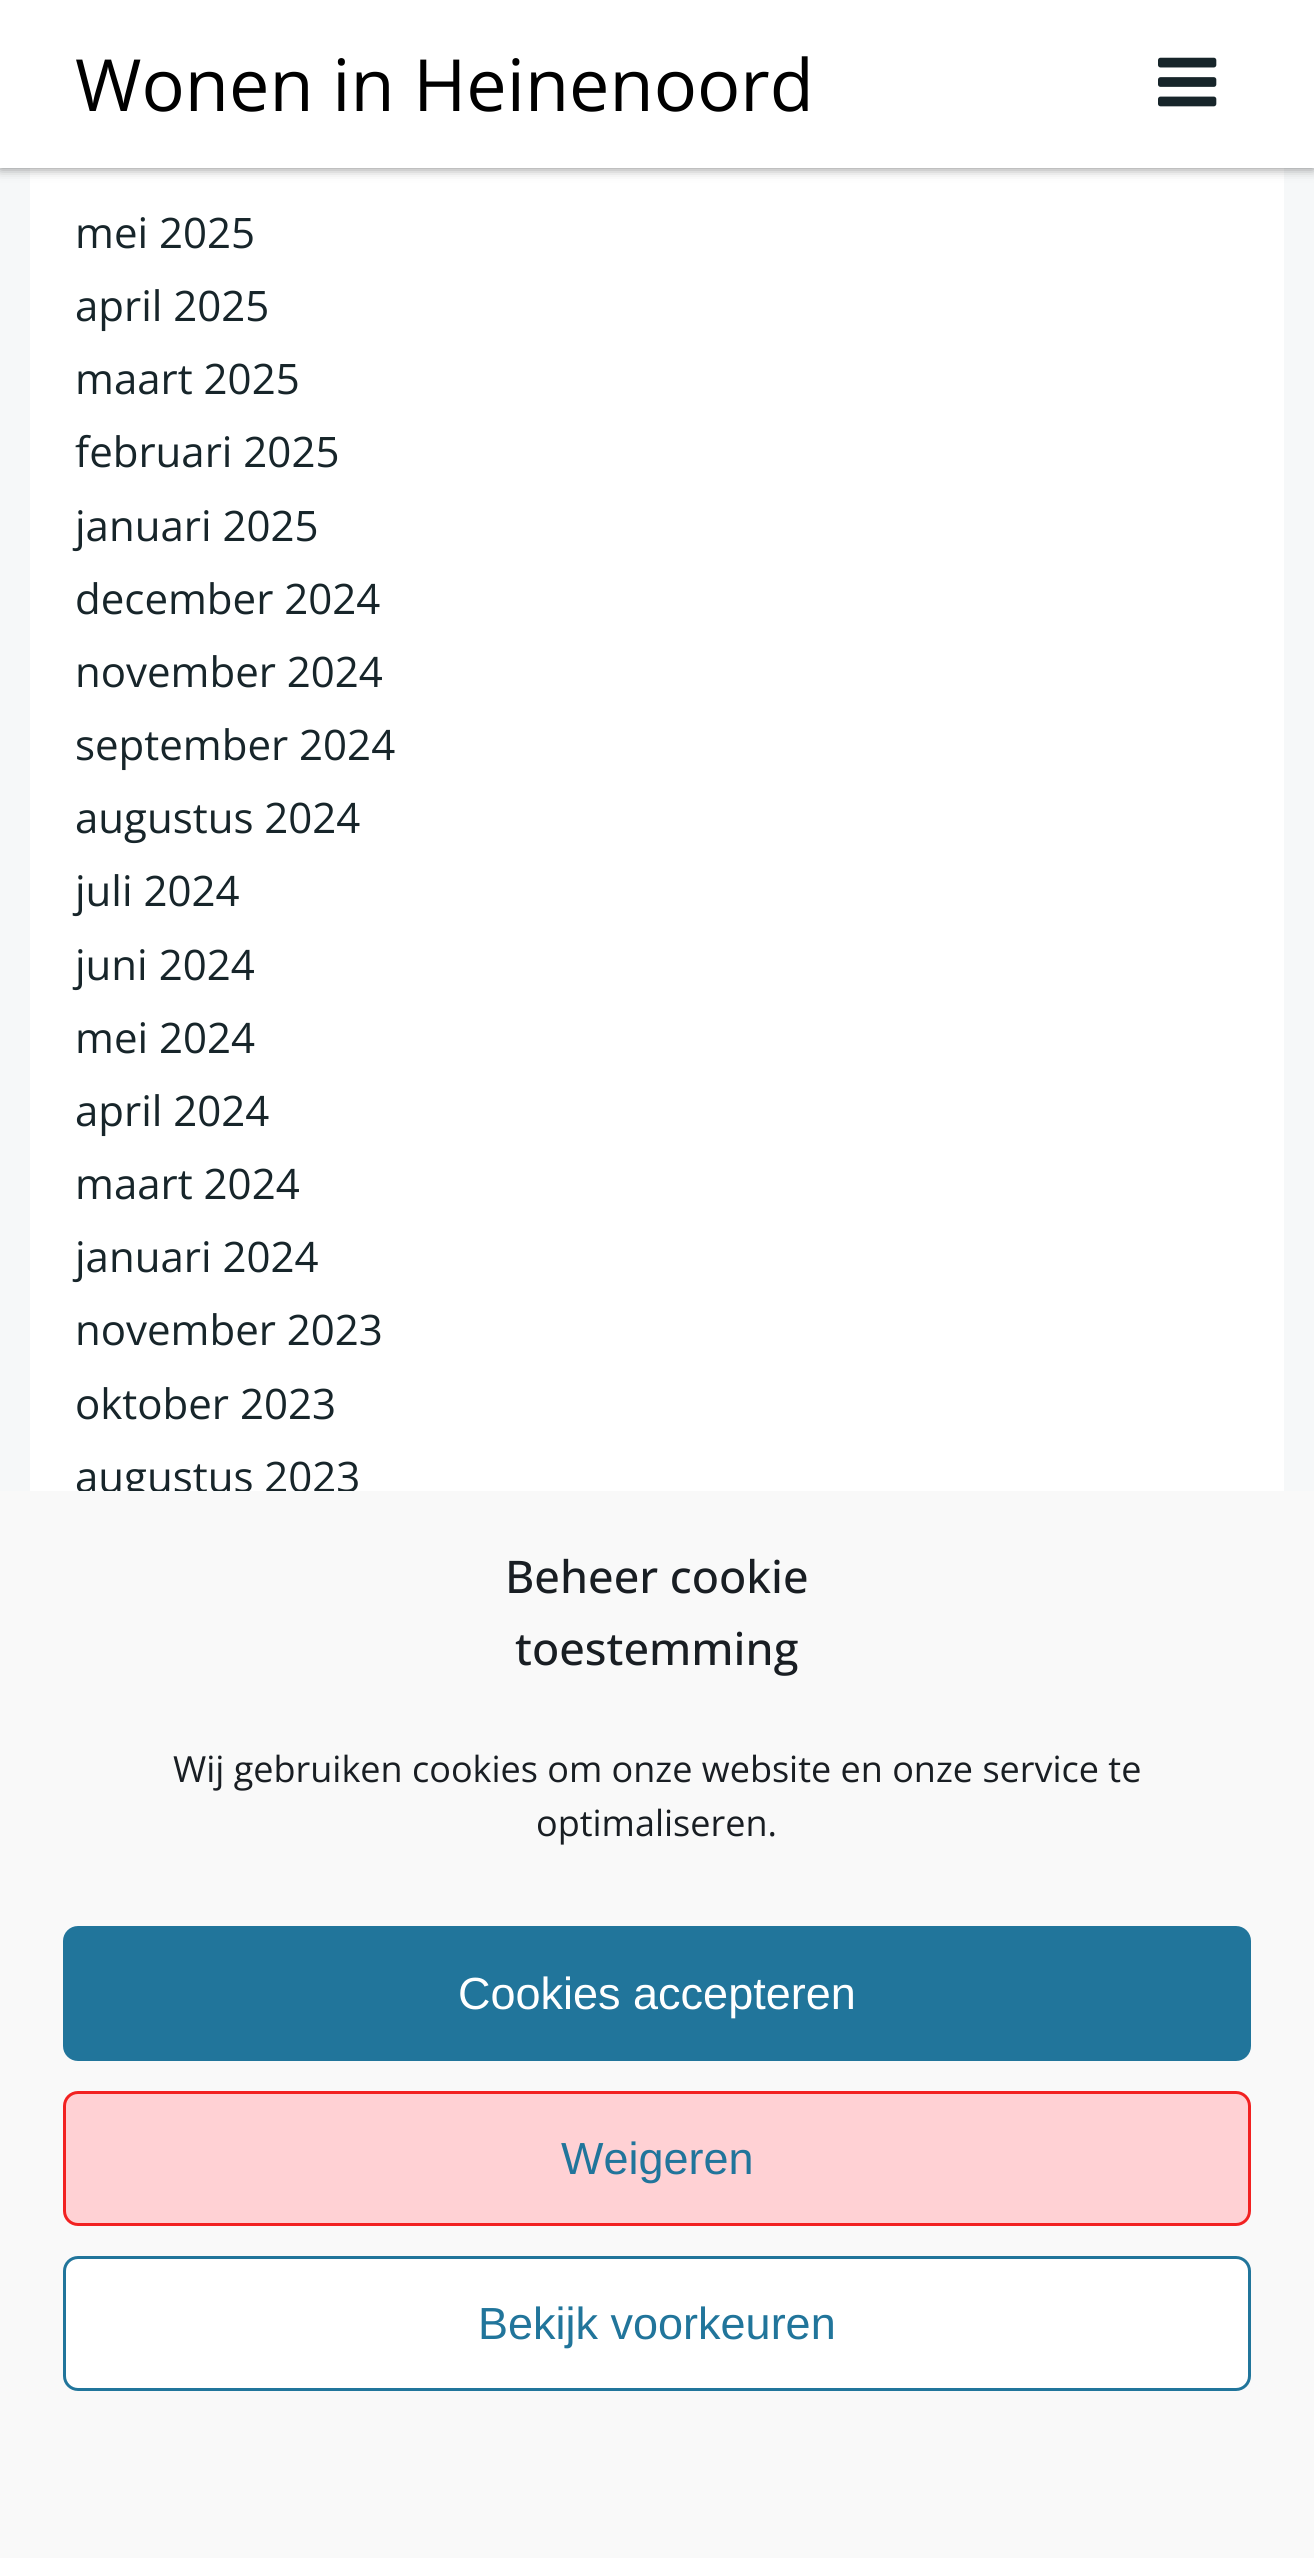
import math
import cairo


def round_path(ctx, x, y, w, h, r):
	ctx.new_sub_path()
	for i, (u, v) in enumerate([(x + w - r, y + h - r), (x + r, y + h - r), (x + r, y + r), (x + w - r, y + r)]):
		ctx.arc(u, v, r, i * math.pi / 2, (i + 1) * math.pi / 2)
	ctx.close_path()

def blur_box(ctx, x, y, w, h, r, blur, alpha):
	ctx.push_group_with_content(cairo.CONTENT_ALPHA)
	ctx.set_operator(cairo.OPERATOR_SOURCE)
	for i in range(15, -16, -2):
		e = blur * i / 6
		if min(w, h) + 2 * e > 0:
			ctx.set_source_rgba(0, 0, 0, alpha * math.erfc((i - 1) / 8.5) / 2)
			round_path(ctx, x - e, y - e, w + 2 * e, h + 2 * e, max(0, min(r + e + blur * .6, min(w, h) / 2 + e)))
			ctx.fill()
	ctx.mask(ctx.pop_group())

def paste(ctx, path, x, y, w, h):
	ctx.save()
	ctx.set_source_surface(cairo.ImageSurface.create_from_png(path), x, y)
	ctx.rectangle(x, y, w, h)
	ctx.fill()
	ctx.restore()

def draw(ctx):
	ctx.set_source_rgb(0.961, 0.969, 0.973)
	ctx.paint()
	ctx.set_source_rgb(1, 1, 1)
	ctx.rectangle(30, 168, 1254, 1323)
	ctx.fill()
	ctx.set_source_rgb(0, 0, 0)
	blur_box(ctx, 0, 0, 1314, 168, 0, 6, 0.5)
	ctx.set_source_rgb(1, 1, 1)
	ctx.rectangle(0, 0, 1314, 168)
	ctx.fill()
	ctx.select_font_face('Open Sans')
	ctx.set_font_size(72)
	ctx.set_source_rgb(0, 0, 0)
	ctx.move_to(75, 111)
	ctx.show_text('Wonen in Heinenoord')
	paste(ctx, 'media/1.png', 1158, 57, 59, 50)
	ctx.set_font_size(42)
	ctx.set_source_rgb(0.09, 0.145, 0.165)
	for x, y, s in [
		(75, 248, 'mei 2025'),
		(75, 321, 'april 2025'),
		(75, 394, 'maart 2025'),
		(75, 467, 'februari 2025'),
		(75, 541, 'januari 2025'),
		(75, 614, 'december 2024'),
		(75, 687, 'november 2024'),
		(75, 760, 'september 2024'),
		(75, 833, 'augustus 2024'),
		(75, 906, 'juli 2024'),
		(75, 980, 'juni 2024'),
		(75, 1053, 'mei 2024'),
		(75, 1126, 'april 2024'),
		(75, 1199, 'maart 2024'),
		(75, 1272, 'januari 2024'),
		(75, 1345, 'november 2023'),
		(75, 1419, 'oktober 2023'),
		(75, 1492, 'augustus 2023'),
	]:
		ctx.move_to(x, y)
		ctx.show_text(s)
	ctx.set_source_rgb(0.976, 0.976, 0.976)
	ctx.rectangle(0, 1491, 1314, 1067)
	ctx.fill()
	ctx.select_font_face('Open Sans Medium')
	ctx.set_font_size(45)
	ctx.set_source_rgb(0.098, 0.118, 0.137)
	ctx.move_to(505, 1593)
	ctx.show_text('Beheer cookie')
	ctx.move_to(515, 1665)
	ctx.show_text('toestemming')
	ctx.select_font_face('Open Sans')
	ctx.set_font_size(36)
	ctx.move_to(173, 1782)
	ctx.show_text('Wij gebruiken cookies om onze website en onze service te')
	ctx.move_to(536, 1836)
	ctx.show_text('optimaliseren.')
	ctx.set_source_rgb(0.129, 0.459, 0.608)
	round_path(ctx, 64.5, 1927.5, 1185, 132, 13.5)
	ctx.fill_preserve()
	ctx.set_line_width(3)
	ctx.stroke()
	ctx.select_font_face('Liberation Sans')
	ctx.set_font_size(45)
	ctx.set_source_rgb(1, 1, 1)
	ctx.move_to(458, 2009)
	ctx.show_text('Cookies accepteren')
	ctx.set_source_rgb(1, 0.82, 0.831)
	round_path(ctx, 64.5, 2092.5, 1185, 132, 13.5)
	ctx.fill_preserve()
	ctx.set_source_rgb(0.949, 0.129, 0.129)
	ctx.stroke()
	ctx.set_source_rgb(0.129, 0.459, 0.608)
	ctx.move_to(561, 2174)
	ctx.show_text('Weigeren')
	ctx.set_source_rgb(1, 1, 1)
	round_path(ctx, 64.5, 2257.5, 1185, 132, 13.5)
	ctx.fill_preserve()
	ctx.set_source_rgb(0.129, 0.459, 0.608)
	ctx.stroke()
	ctx.move_to(478, 2339)
	ctx.show_text('Bekijk voorkeuren')


surface = cairo.ImageSurface(cairo.FORMAT_RGB24, 1314, 2558)
ctx = cairo.Context(surface)
options = cairo.FontOptions()
options.set_hint_metrics(cairo.HINT_METRICS_OFF)
options.set_hint_style(cairo.HINT_STYLE_NONE)
ctx.set_font_options(options)
ctx.set_miter_limit(4)
draw(ctx)
surface.write_to_png('image.png')
